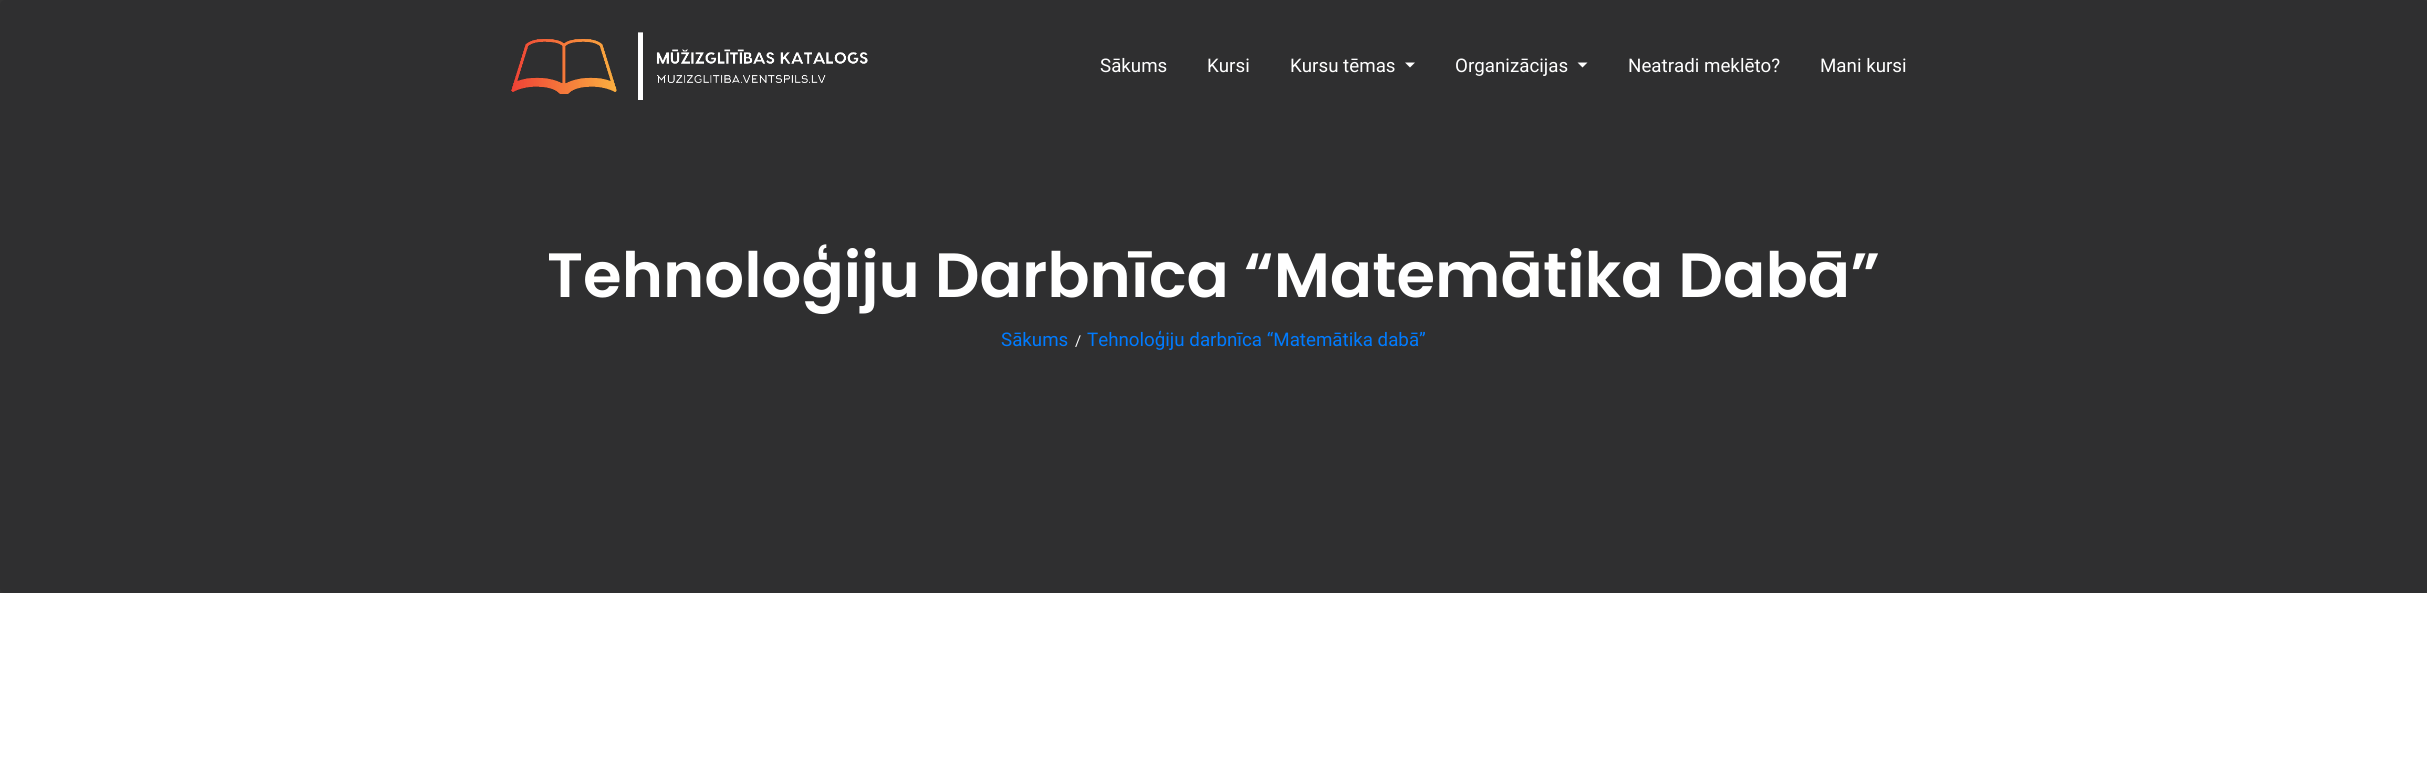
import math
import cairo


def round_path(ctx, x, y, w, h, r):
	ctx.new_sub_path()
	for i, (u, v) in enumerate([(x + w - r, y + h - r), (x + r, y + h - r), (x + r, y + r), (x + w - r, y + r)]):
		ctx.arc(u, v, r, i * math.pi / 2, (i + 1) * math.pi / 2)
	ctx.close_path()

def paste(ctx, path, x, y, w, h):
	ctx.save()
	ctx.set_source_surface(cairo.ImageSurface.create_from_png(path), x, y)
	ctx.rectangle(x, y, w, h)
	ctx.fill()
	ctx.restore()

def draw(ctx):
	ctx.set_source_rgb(1, 1, 1)
	ctx.paint()
	ctx.set_source_rgb(0.2, 0.2, 0.2)
	ctx.rectangle(0, 0, 2427, 593)
	ctx.fill()
	ctx.set_source_rgb(0.184, 0.184, 0.188)
	round_path(ctx, 0, 0, 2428, 593, 5)
	ctx.fill()
	paste(ctx, 'media/1.png', 511, 32, 357, 68)
	ctx.select_font_face('Roboto')
	ctx.set_font_size(18.75)
	ctx.set_source_rgb(1, 1, 1)
	for x, y, s in [
		(1100, 72, 'Sākums'),
		(1207, 72, 'Kursi'),
		(1290, 72, 'Kursu tēmas'),
	]:
		ctx.move_to(x, y)
		ctx.show_text(s)
	ctx.new_path()
	ctx.move_to(1405, 62.5)
	ctx.line_to(1415, 62.5)
	ctx.line_to(1410, 67.5)
	ctx.close_path()
	ctx.fill()
	ctx.move_to(1455, 72)
	ctx.show_text('Organizācijas')
	ctx.new_path()
	ctx.move_to(1577.5, 62.5)
	ctx.line_to(1587.5, 62.5)
	ctx.line_to(1582.5, 67.5)
	ctx.close_path()
	ctx.fill()
	ctx.move_to(1628, 72)
	ctx.show_text('Neatradi meklēto?')
	ctx.move_to(1820, 72)
	ctx.show_text('Mani kursi')
	ctx.select_font_face('Poppins SemiBold')
	ctx.set_font_size(62.5)
	ctx.move_to(547, 297)
	ctx.show_text('Tehnoloģiju Darbnīca “Matemātika Dabā”')
	ctx.select_font_face('Roboto')
	ctx.set_font_size(18.75)
	ctx.set_source_rgb(0, 0.482, 1)
	ctx.move_to(1001, 346)
	ctx.show_text('Sākums')
	ctx.set_font_size(15)
	ctx.set_source_rgb(1, 1, 1)
	ctx.move_to(1075, 346)
	ctx.show_text('/')
	ctx.set_font_size(18.75)
	ctx.set_source_rgb(0, 0.482, 1)
	ctx.move_to(1087, 346)
	ctx.show_text('Tehnoloģiju darbnīca “Matemātika dabā”')


surface = cairo.ImageSurface(cairo.FORMAT_RGB24, 2427, 759)
ctx = cairo.Context(surface)
options = cairo.FontOptions()
options.set_hint_metrics(cairo.HINT_METRICS_OFF)
options.set_hint_style(cairo.HINT_STYLE_NONE)
ctx.set_font_options(options)
ctx.set_miter_limit(4)
draw(ctx)
surface.write_to_png('image.png')
